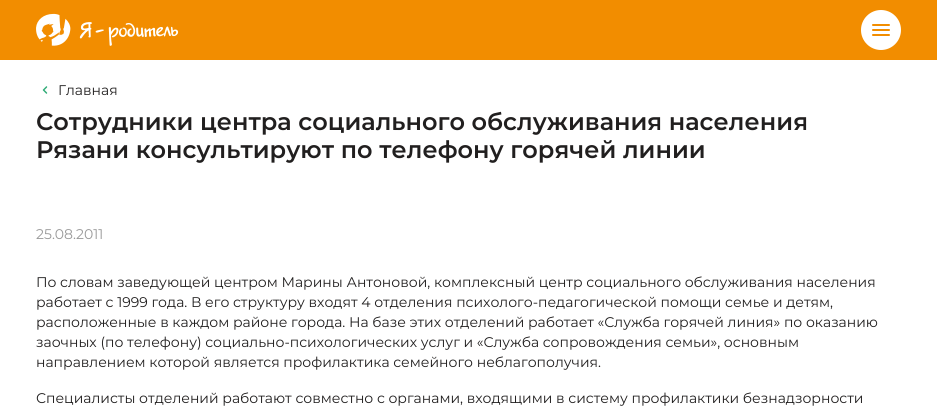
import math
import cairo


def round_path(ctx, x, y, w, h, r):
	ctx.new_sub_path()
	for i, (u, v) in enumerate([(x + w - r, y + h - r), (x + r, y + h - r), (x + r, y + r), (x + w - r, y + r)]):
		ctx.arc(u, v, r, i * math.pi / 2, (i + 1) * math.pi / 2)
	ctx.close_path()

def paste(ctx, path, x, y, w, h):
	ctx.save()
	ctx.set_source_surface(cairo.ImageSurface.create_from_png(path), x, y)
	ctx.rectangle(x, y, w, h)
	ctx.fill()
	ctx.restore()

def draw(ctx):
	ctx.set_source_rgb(1, 1, 1)
	ctx.paint()
	ctx.set_source_rgb(0.949, 0.553, 0)
	ctx.rectangle(0, 0, 937, 60)
	ctx.fill()
	paste(ctx, 'media/1.png', 36, 13, 143, 33)
	ctx.set_source_rgb(1, 1, 1)
	ctx.arc(881, 30, 20, 0, 2 * math.pi)
	ctx.fill()
	ctx.set_source_rgb(0.949, 0.553, 0)
	round_path(ctx, 872, 24, 18, 2, 1)
	ctx.fill()
	round_path(ctx, 872, 29, 18, 2, 1)
	ctx.fill()
	round_path(ctx, 872, 34, 18, 2, 1)
	ctx.fill()
	paste(ctx, 'media/2.png', 42, 86, 6, 8)
	ctx.select_font_face('Montserrat')
	ctx.set_font_size(14)
	ctx.set_source_rgb(0.129, 0.122, 0.122)
	ctx.move_to(58, 95)
	ctx.show_text('Главная')
	ctx.select_font_face('Montserrat SemiBold')
	ctx.set_font_size(24)
	ctx.move_to(36, 130)
	ctx.show_text('Сотрудники центра социального обслуживания населения')
	ctx.move_to(36, 158)
	ctx.show_text('Рязани консультируют по телефону горячей линии')
	ctx.select_font_face('Montserrat')
	ctx.set_font_size(14)
	ctx.set_source_rgb(0.6, 0.6, 0.6)
	ctx.move_to(36, 239)
	ctx.show_text('25.08.2011')
	ctx.set_source_rgb(0.129, 0.122, 0.122)
	for x, y, s in [
		(36, 287, 'По словам заведующей центром Марины Антоновой, комплексный центр социального обслуживания населения'),
		(36, 307, 'работает с 1999 года. В его структуру входят 4 отделения психолого-педагогической помощи семье и детям,'),
		(36, 327, 'расположенные в каждом районе города. На базе этих отделений работает «Служба горячей линия» по оказанию'),
		(36, 347, 'заочных (по телефону) социально-психологических услуг и «Служба сопровождения семьи», основным'),
		(36, 367, 'направлением которой является профилактика семейного неблагополучия.'),
		(36, 403, 'Специалисты отделений работают совместно с органами, входящими в систему профилактики безнадзорности'),
	]:
		ctx.move_to(x, y)
		ctx.show_text(s)


surface = cairo.ImageSurface(cairo.FORMAT_RGB24, 952, 407)
ctx = cairo.Context(surface)
options = cairo.FontOptions()
options.set_hint_metrics(cairo.HINT_METRICS_OFF)
options.set_hint_style(cairo.HINT_STYLE_NONE)
ctx.set_font_options(options)
ctx.set_miter_limit(4)
draw(ctx)
surface.write_to_png('image.png')
